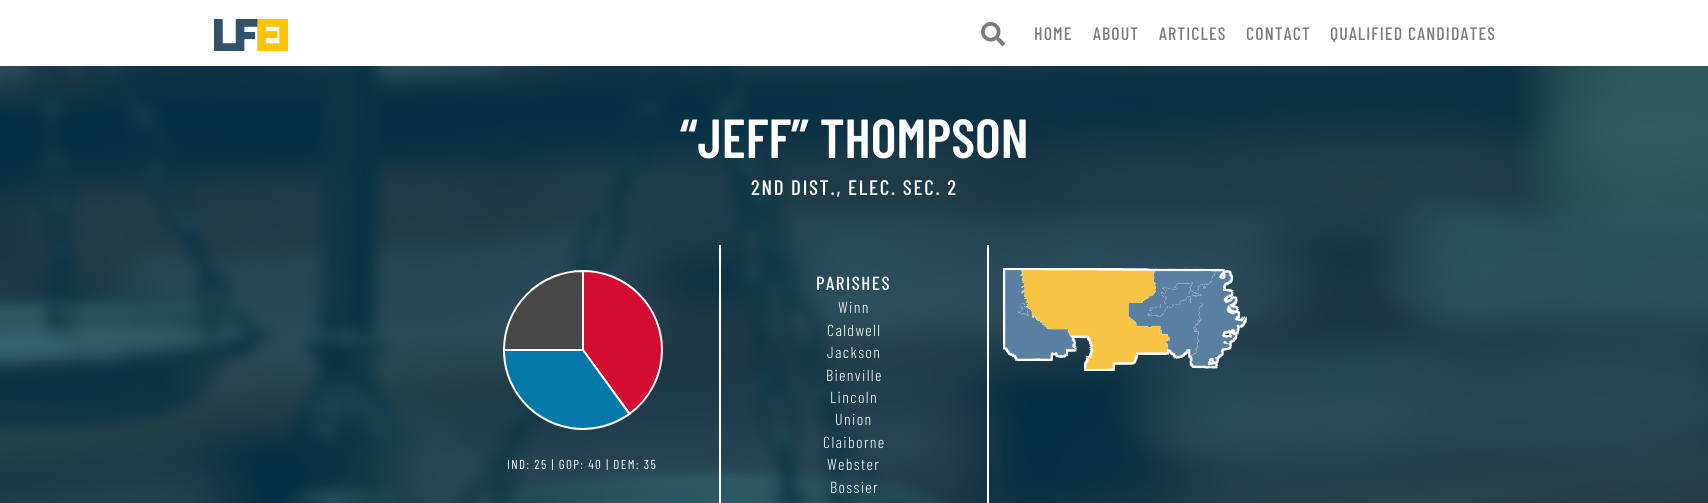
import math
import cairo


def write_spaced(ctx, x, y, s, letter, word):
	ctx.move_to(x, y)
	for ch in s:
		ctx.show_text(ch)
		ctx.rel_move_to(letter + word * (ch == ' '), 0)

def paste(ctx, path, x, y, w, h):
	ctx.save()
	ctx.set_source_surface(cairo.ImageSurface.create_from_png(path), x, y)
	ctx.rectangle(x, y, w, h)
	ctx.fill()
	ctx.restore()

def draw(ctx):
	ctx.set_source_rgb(1, 1, 1)
	ctx.paint()
	paste(ctx, 'media/1.png', 981, 22, 24, 24)
	paste(ctx, 'media/2.png', 214, 19, 74, 32)
	ctx.select_font_face('Barlow Condensed Medium')
	ctx.set_font_size(18)
	ctx.set_source_rgb(0.478, 0.482, 0.494)
	for x, y, s in [
		(1034, 40, 'HOME'),
		(1093, 40, 'ABOUT'),
		(1159, 40, 'ARTICLES'),
		(1246, 40, 'CONTACT'),
	]:
		write_spaced(ctx, x, y, s, 1.1, 0)
	ctx.save()
	ctx.rectangle(1018, 0, 476, 66)
	ctx.clip()
	write_spaced(ctx, 1330, 40, 'QUALIFIED CANDIDATES', 1.1, 0)
	ctx.restore()
	paste(ctx, 'media/3.png', 0, 66, 1708, 437)
	ctx.select_font_face('Barlow Condensed SemiBold')
	ctx.set_font_size(55)
	ctx.set_source_rgb(1, 1, 1)
	ctx.move_to(680, 158)
	ctx.show_text('“JEFF” THOMPSON')
	ctx.select_font_face('Barlow Condensed Medium')
	ctx.set_font_size(21)
	write_spaced(ctx, 751, 195, '2ND DIST., ELEC. SEC. 2', 1.7, 0)
	paste(ctx, 'media/4.png', 503, 270, 160, 160)
	ctx.select_font_face('Barlow Condensed')
	ctx.set_font_size(13)
	write_spaced(ctx, 507, 469, 'IND: 25 | GOP: 40 | DEM: 35', 1.35, 0)
	ctx.rectangle(987, 245, 2, 258)
	ctx.fill()
	ctx.rectangle(719, 245, 2, 258)
	ctx.fill()
	ctx.select_font_face('Barlow Condensed Medium')
	ctx.set_font_size(19)
	write_spaced(ctx, 816, 290, 'PARISHES', 1.5, 0)
	ctx.select_font_face('Barlow Condensed Light')
	ctx.set_font_size(16)
	for x, y, s in [
		(838, 313, 'Winn'),
		(827, 336, 'Caldwell'),
		(827, 358, 'Jackson'),
		(826, 381, 'Bienville'),
		(830, 403, 'Lincoln'),
		(835, 425, 'Union'),
		(823, 448, 'Claiborne'),
		(827, 470, 'Webster'),
		(830, 493, 'Bossier'),
	]:
		write_spaced(ctx, x, y, s, 1.35, 0)
	paste(ctx, 'media/5.png', 1003, 268, 244, 103)


surface = cairo.ImageSurface(cairo.FORMAT_RGB24, 1708, 503)
ctx = cairo.Context(surface)
options = cairo.FontOptions()
options.set_hint_metrics(cairo.HINT_METRICS_OFF)
options.set_hint_style(cairo.HINT_STYLE_NONE)
ctx.set_font_options(options)
ctx.set_miter_limit(4)
draw(ctx)
surface.write_to_png('image.png')
